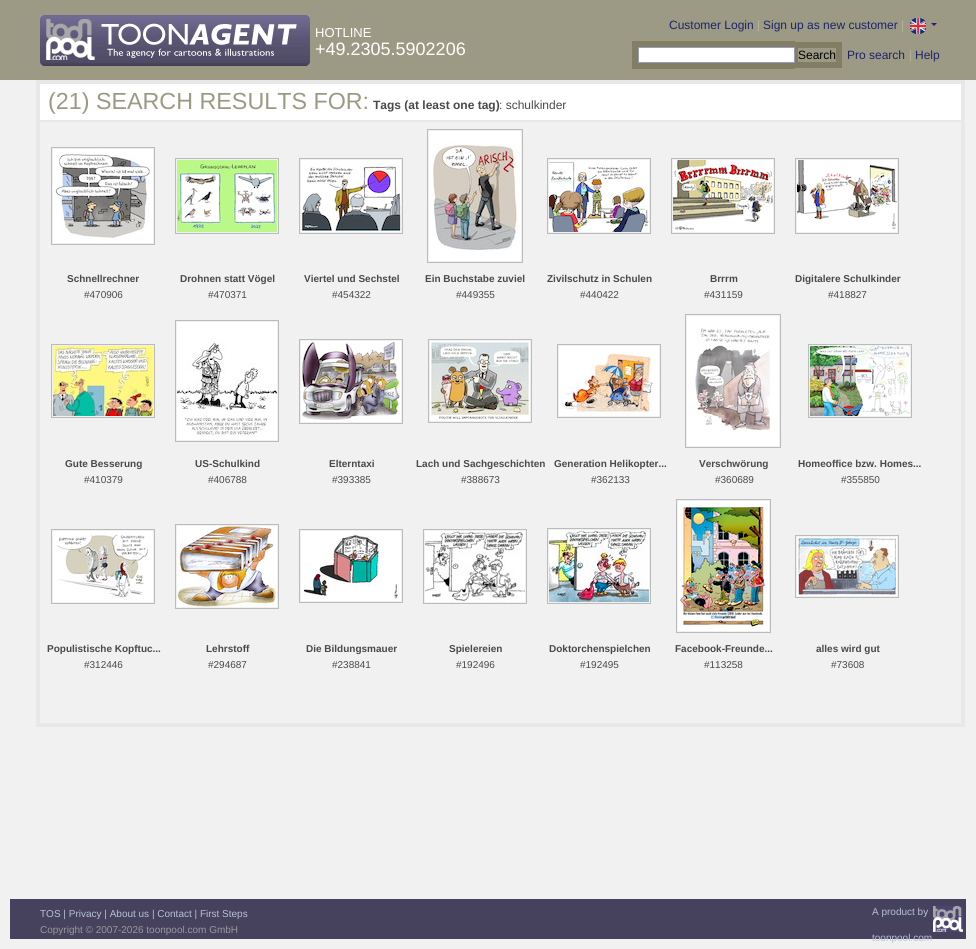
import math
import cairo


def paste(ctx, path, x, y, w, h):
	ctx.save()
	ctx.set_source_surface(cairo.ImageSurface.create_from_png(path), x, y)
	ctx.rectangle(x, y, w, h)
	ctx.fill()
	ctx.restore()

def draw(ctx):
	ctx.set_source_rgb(0.945, 0.945, 0.945)
	ctx.paint()
	ctx.set_source_rgb(0.612, 0.6, 0.518)
	ctx.rectangle(0, 0, 976, 80)
	ctx.fill()
	paste(ctx, 'media/1.png', 40, 15, 270, 51)
	ctx.select_font_face('Liberation Sans')
	ctx.set_font_size(13)
	ctx.set_source_rgb(1, 1, 1)
	ctx.move_to(315, 37)
	ctx.show_text('HOTLINE')
	ctx.set_font_size(18)
	ctx.move_to(315, 55)
	ctx.show_text('+49.2305.5902206')
	ctx.set_font_size(12)
	ctx.set_source_rgb(0.114, 0.141, 0.424)
	ctx.move_to(669, 29)
	ctx.show_text('Customer Login')
	ctx.set_source_rgb(0.71, 0.698, 0.608)
	ctx.move_to(757, 29)
	ctx.show_text('|')
	ctx.set_source_rgb(0.114, 0.141, 0.424)
	ctx.move_to(763, 29)
	ctx.show_text('Sign up as new customer')
	ctx.set_source_rgb(0.71, 0.698, 0.608)
	ctx.move_to(901, 29)
	ctx.show_text('|')
	paste(ctx, 'media/2.png', 910, 18, 16, 16)
	ctx.set_source_rgb(0.114, 0.141, 0.424)
	ctx.new_path()
	ctx.move_to(931, 23)
	ctx.line_to(937, 23)
	ctx.line_to(934, 26)
	ctx.close_path()
	ctx.fill()
	ctx.set_source_rgb(0.51, 0.494, 0.388)
	ctx.rectangle(632, 41, 163, 28)
	ctx.fill()
	ctx.rectangle(795, 42, 47, 26)
	ctx.fill()
	ctx.set_source_rgb(1, 1, 1)
	ctx.rectangle(638.5, 47.5, 156, 15)
	ctx.fill_preserve()
	ctx.set_source_rgb(0.6, 0.612, 0.733)
	ctx.set_line_width(1)
	ctx.stroke()
	ctx.set_source_rgb(0.612, 0.6, 0.518)
	ctx.rectangle(798, 48, 38, 14)
	ctx.fill()
	ctx.set_source_rgb(0, 0, 0)
	ctx.move_to(798, 59)
	ctx.show_text('Search')
	ctx.set_source_rgb(0.114, 0.141, 0.424)
	ctx.move_to(847, 59)
	ctx.show_text('Pro search')
	ctx.set_source_rgb(0.71, 0.698, 0.608)
	ctx.move_to(909, 59)
	ctx.show_text('|')
	ctx.set_source_rgb(0.114, 0.141, 0.424)
	ctx.move_to(915, 59)
	ctx.show_text('Help')
	ctx.rectangle(38, 82, 925, 643)
	ctx.set_source_rgb(0.91, 0.91, 0.91)
	ctx.set_line_width(4)
	ctx.stroke()
	ctx.set_source_rgb(1, 1, 1)
	ctx.rectangle(40, 84, 921, 36)
	ctx.fill()
	ctx.set_font_size(23.3)
	ctx.set_source_rgb(0.612, 0.6, 0.518)
	ctx.move_to(48, 109)
	ctx.show_text('(21) SEARCH RESULTS FOR:')
	ctx.select_font_face('Liberation Sans', cairo.FONT_SLANT_NORMAL, cairo.FONT_WEIGHT_BOLD)
	ctx.set_font_size(12)
	ctx.set_source_rgb(0.286, 0.286, 0.286)
	ctx.move_to(373, 109)
	ctx.show_text('Tags (at least one tag)')
	ctx.select_font_face('Liberation Sans')
	ctx.move_to(499, 109)
	ctx.show_text(': schulkinder')
	ctx.set_source_rgb(0.91, 0.91, 0.91)
	ctx.rectangle(40, 120, 921, 2)
	ctx.fill()
	ctx.rectangle(51.5, 147.5, 103, 97)
	ctx.set_source_rgb(0.733, 0.733, 0.733)
	ctx.set_line_width(1)
	ctx.stroke()
	paste(ctx, 'media/3.png', 53, 149, 100, 94)
	ctx.select_font_face('Liberation Sans', cairo.FONT_SLANT_NORMAL, cairo.FONT_WEIGHT_BOLD)
	ctx.set_font_size(10)
	ctx.set_source_rgb(0.286, 0.286, 0.286)
	ctx.move_to(67, 282)
	ctx.show_text('Schnellrechner')
	ctx.select_font_face('Liberation Sans')
	ctx.move_to(84, 298)
	ctx.show_text('#470906')
	ctx.rectangle(175.5, 158.5, 103, 75)
	ctx.set_source_rgb(0.733, 0.733, 0.733)
	ctx.stroke()
	paste(ctx, 'media/4.png', 177, 160, 100, 72)
	ctx.select_font_face('Liberation Sans', cairo.FONT_SLANT_NORMAL, cairo.FONT_WEIGHT_BOLD)
	ctx.set_source_rgb(0.286, 0.286, 0.286)
	ctx.move_to(180, 282)
	ctx.show_text('Drohnen statt Vögel')
	ctx.select_font_face('Liberation Sans')
	ctx.move_to(208, 298)
	ctx.show_text('#470371')
	ctx.rectangle(299.5, 158.5, 103, 75)
	ctx.set_source_rgb(0.733, 0.733, 0.733)
	ctx.stroke()
	paste(ctx, 'media/5.png', 301, 160, 100, 72)
	ctx.select_font_face('Liberation Sans', cairo.FONT_SLANT_NORMAL, cairo.FONT_WEIGHT_BOLD)
	ctx.set_source_rgb(0.286, 0.286, 0.286)
	ctx.move_to(304, 282)
	ctx.show_text('Viertel und Sechstel')
	ctx.select_font_face('Liberation Sans')
	ctx.move_to(332, 298)
	ctx.show_text('#454322')
	ctx.rectangle(427.5, 129.5, 95, 133)
	ctx.set_source_rgb(0.733, 0.733, 0.733)
	ctx.stroke()
	paste(ctx, 'media/6.png', 429, 131, 92, 130)
	ctx.select_font_face('Liberation Sans', cairo.FONT_SLANT_NORMAL, cairo.FONT_WEIGHT_BOLD)
	ctx.set_source_rgb(0.286, 0.286, 0.286)
	ctx.move_to(425, 282)
	ctx.show_text('Ein Buchstabe zuviel')
	ctx.select_font_face('Liberation Sans')
	ctx.move_to(456, 298)
	ctx.show_text('#449355')
	ctx.rectangle(547.5, 158.5, 103, 75)
	ctx.set_source_rgb(0.733, 0.733, 0.733)
	ctx.stroke()
	paste(ctx, 'media/7.png', 549, 160, 100, 72)
	ctx.select_font_face('Liberation Sans', cairo.FONT_SLANT_NORMAL, cairo.FONT_WEIGHT_BOLD)
	ctx.set_source_rgb(0.286, 0.286, 0.286)
	ctx.move_to(547, 282)
	ctx.show_text('Zivilschutz in Schulen')
	ctx.select_font_face('Liberation Sans')
	ctx.move_to(580, 298)
	ctx.show_text('#440422')
	ctx.rectangle(671.5, 158.5, 103, 75)
	ctx.set_source_rgb(0.733, 0.733, 0.733)
	ctx.stroke()
	paste(ctx, 'media/8.png', 673, 160, 100, 72)
	ctx.select_font_face('Liberation Sans', cairo.FONT_SLANT_NORMAL, cairo.FONT_WEIGHT_BOLD)
	ctx.set_source_rgb(0.286, 0.286, 0.286)
	ctx.move_to(710, 282)
	ctx.show_text('Brrrm')
	ctx.select_font_face('Liberation Sans')
	ctx.move_to(704, 298)
	ctx.show_text('#431159')
	ctx.rectangle(795.5, 158.5, 103, 75)
	ctx.set_source_rgb(0.733, 0.733, 0.733)
	ctx.stroke()
	paste(ctx, 'media/9.png', 797, 160, 100, 72)
	ctx.select_font_face('Liberation Sans', cairo.FONT_SLANT_NORMAL, cairo.FONT_WEIGHT_BOLD)
	ctx.set_source_rgb(0.286, 0.286, 0.286)
	ctx.move_to(795, 282)
	ctx.show_text('Digitalere Schulkinder')
	ctx.select_font_face('Liberation Sans')
	ctx.move_to(828, 298)
	ctx.show_text('#418827')
	ctx.rectangle(51.5, 344.5, 103, 73)
	ctx.set_source_rgb(0.733, 0.733, 0.733)
	ctx.stroke()
	paste(ctx, 'media/10.png', 53, 346, 100, 70)
	ctx.select_font_face('Liberation Sans', cairo.FONT_SLANT_NORMAL, cairo.FONT_WEIGHT_BOLD)
	ctx.set_source_rgb(0.286, 0.286, 0.286)
	ctx.move_to(65, 467)
	ctx.show_text('Gute Besserung')
	ctx.select_font_face('Liberation Sans')
	ctx.move_to(84, 483)
	ctx.show_text('#410379')
	ctx.rectangle(175.5, 320.5, 103, 121)
	ctx.set_source_rgb(0.733, 0.733, 0.733)
	ctx.stroke()
	paste(ctx, 'media/11.png', 177, 322, 100, 118)
	ctx.select_font_face('Liberation Sans', cairo.FONT_SLANT_NORMAL, cairo.FONT_WEIGHT_BOLD)
	ctx.set_source_rgb(0.286, 0.286, 0.286)
	ctx.move_to(195, 467)
	ctx.show_text('US-Schulkind')
	ctx.select_font_face('Liberation Sans')
	ctx.move_to(208, 483)
	ctx.show_text('#406788')
	ctx.rectangle(299.5, 339.5, 103, 84)
	ctx.set_source_rgb(0.733, 0.733, 0.733)
	ctx.stroke()
	paste(ctx, 'media/12.png', 301, 341, 100, 81)
	ctx.select_font_face('Liberation Sans', cairo.FONT_SLANT_NORMAL, cairo.FONT_WEIGHT_BOLD)
	ctx.set_source_rgb(0.286, 0.286, 0.286)
	ctx.move_to(329, 467)
	ctx.show_text('Elterntaxi')
	ctx.select_font_face('Liberation Sans')
	ctx.move_to(332, 483)
	ctx.show_text('#393385')
	ctx.rectangle(428.5, 339.5, 103, 83)
	ctx.set_source_rgb(0.733, 0.733, 0.733)
	ctx.stroke()
	paste(ctx, 'media/13.png', 430, 341, 100, 80)
	ctx.select_font_face('Liberation Sans', cairo.FONT_SLANT_NORMAL, cairo.FONT_WEIGHT_BOLD)
	ctx.set_source_rgb(0.286, 0.286, 0.286)
	ctx.move_to(416, 467)
	ctx.show_text('Lach und Sachgeschichten')
	ctx.select_font_face('Liberation Sans')
	ctx.move_to(461, 483)
	ctx.show_text('#388673')
	ctx.rectangle(557.5, 344.5, 103, 73)
	ctx.set_source_rgb(0.733, 0.733, 0.733)
	ctx.stroke()
	paste(ctx, 'media/14.png', 559, 346, 100, 70)
	ctx.select_font_face('Liberation Sans', cairo.FONT_SLANT_NORMAL, cairo.FONT_WEIGHT_BOLD)
	ctx.set_source_rgb(0.286, 0.286, 0.286)
	ctx.move_to(554, 467)
	ctx.show_text('Generation Helikopter...')
	ctx.select_font_face('Liberation Sans')
	ctx.move_to(591, 483)
	ctx.show_text('#362133')
	ctx.rectangle(685.5, 314.5, 95, 133)
	ctx.set_source_rgb(0.733, 0.733, 0.733)
	ctx.stroke()
	paste(ctx, 'media/15.png', 687, 316, 92, 130)
	ctx.select_font_face('Liberation Sans', cairo.FONT_SLANT_NORMAL, cairo.FONT_WEIGHT_BOLD)
	ctx.set_source_rgb(0.286, 0.286, 0.286)
	ctx.move_to(699, 467)
	ctx.show_text('Verschwörung')
	ctx.select_font_face('Liberation Sans')
	ctx.move_to(715, 483)
	ctx.show_text('#360689')
	ctx.rectangle(808.5, 344.5, 103, 73)
	ctx.set_source_rgb(0.733, 0.733, 0.733)
	ctx.stroke()
	paste(ctx, 'media/16.png', 810, 346, 100, 70)
	ctx.select_font_face('Liberation Sans', cairo.FONT_SLANT_NORMAL, cairo.FONT_WEIGHT_BOLD)
	ctx.set_source_rgb(0.286, 0.286, 0.286)
	ctx.move_to(798, 467)
	ctx.show_text('Homeoffice bzw. Homes...')
	ctx.select_font_face('Liberation Sans')
	ctx.move_to(841, 483)
	ctx.show_text('#355850')
	ctx.rectangle(51.5, 529.5, 103, 74)
	ctx.set_source_rgb(0.733, 0.733, 0.733)
	ctx.stroke()
	paste(ctx, 'media/17.png', 53, 531, 100, 71)
	ctx.select_font_face('Liberation Sans', cairo.FONT_SLANT_NORMAL, cairo.FONT_WEIGHT_BOLD)
	ctx.set_source_rgb(0.286, 0.286, 0.286)
	ctx.move_to(47, 652)
	ctx.show_text('Populistische Kopftuc...')
	ctx.select_font_face('Liberation Sans')
	ctx.move_to(84, 668)
	ctx.show_text('#312446')
	ctx.rectangle(175.5, 524.5, 103, 84)
	ctx.set_source_rgb(0.733, 0.733, 0.733)
	ctx.stroke()
	paste(ctx, 'media/18.png', 177, 526, 100, 81)
	ctx.select_font_face('Liberation Sans', cairo.FONT_SLANT_NORMAL, cairo.FONT_WEIGHT_BOLD)
	ctx.set_source_rgb(0.286, 0.286, 0.286)
	ctx.move_to(206, 652)
	ctx.show_text('Lehrstoff')
	ctx.select_font_face('Liberation Sans')
	ctx.move_to(208, 668)
	ctx.show_text('#294687')
	ctx.rectangle(299.5, 529.5, 103, 73)
	ctx.set_source_rgb(0.733, 0.733, 0.733)
	ctx.stroke()
	paste(ctx, 'media/19.png', 301, 531, 100, 70)
	ctx.select_font_face('Liberation Sans', cairo.FONT_SLANT_NORMAL, cairo.FONT_WEIGHT_BOLD)
	ctx.set_source_rgb(0.286, 0.286, 0.286)
	ctx.move_to(306, 652)
	ctx.show_text('Die Bildungsmauer')
	ctx.select_font_face('Liberation Sans')
	ctx.move_to(332, 668)
	ctx.show_text('#238841')
	ctx.rectangle(423.5, 529.5, 103, 74)
	ctx.set_source_rgb(0.733, 0.733, 0.733)
	ctx.stroke()
	paste(ctx, 'media/20.png', 425, 531, 100, 71)
	ctx.select_font_face('Liberation Sans', cairo.FONT_SLANT_NORMAL, cairo.FONT_WEIGHT_BOLD)
	ctx.set_source_rgb(0.286, 0.286, 0.286)
	ctx.move_to(449, 652)
	ctx.show_text('Spielereien')
	ctx.select_font_face('Liberation Sans')
	ctx.move_to(456, 668)
	ctx.show_text('#192496')
	ctx.rectangle(547.5, 528.5, 103, 75)
	ctx.set_source_rgb(0.733, 0.733, 0.733)
	ctx.stroke()
	paste(ctx, 'media/21.png', 549, 530, 100, 72)
	ctx.select_font_face('Liberation Sans', cairo.FONT_SLANT_NORMAL, cairo.FONT_WEIGHT_BOLD)
	ctx.set_source_rgb(0.286, 0.286, 0.286)
	ctx.move_to(549, 652)
	ctx.show_text('Doktorchenspielchen')
	ctx.select_font_face('Liberation Sans')
	ctx.move_to(580, 668)
	ctx.show_text('#192495')
	ctx.rectangle(676.5, 499.5, 94, 133)
	ctx.set_source_rgb(0.733, 0.733, 0.733)
	ctx.stroke()
	paste(ctx, 'media/22.png', 678, 501, 91, 130)
	ctx.select_font_face('Liberation Sans', cairo.FONT_SLANT_NORMAL, cairo.FONT_WEIGHT_BOLD)
	ctx.set_source_rgb(0.286, 0.286, 0.286)
	ctx.move_to(675, 652)
	ctx.show_text('Facebook-Freunde...')
	ctx.select_font_face('Liberation Sans')
	ctx.move_to(704, 668)
	ctx.show_text('#113258')
	ctx.rectangle(795.5, 535.5, 103, 62)
	ctx.set_source_rgb(0.733, 0.733, 0.733)
	ctx.stroke()
	paste(ctx, 'media/23.png', 797, 537, 100, 59)
	ctx.select_font_face('Liberation Sans', cairo.FONT_SLANT_NORMAL, cairo.FONT_WEIGHT_BOLD)
	ctx.set_source_rgb(0.286, 0.286, 0.286)
	ctx.move_to(816, 652)
	ctx.show_text('alles wird gut')
	ctx.select_font_face('Liberation Sans')
	ctx.move_to(831, 668)
	ctx.show_text('#73608')
	ctx.set_source_rgb(0.275, 0.255, 0.361)
	ctx.rectangle(10, 899, 956, 40)
	ctx.fill()
	ctx.set_source_rgb(0.714, 0.761, 0.847)
	ctx.move_to(40, 917)
	ctx.show_text('TOS | Privacy | About us | Contact | First Steps')
	ctx.set_source_rgb(0.6, 0.6, 0.6)
	ctx.move_to(40, 933)
	ctx.show_text('Copyright © 2007-2026 toonpool.com GmbH')
	ctx.set_source_rgb(0.714, 0.761, 0.847)
	ctx.move_to(872, 915)
	ctx.show_text('A product by')
	paste(ctx, 'media/24.png', 933, 906, 30, 26)
	ctx.move_to(872, 941)
	ctx.show_text('toonpool.com')


surface = cairo.ImageSurface(cairo.FORMAT_RGB24, 976, 949)
ctx = cairo.Context(surface)
options = cairo.FontOptions()
options.set_hint_metrics(cairo.HINT_METRICS_OFF)
options.set_hint_style(cairo.HINT_STYLE_NONE)
ctx.set_font_options(options)
ctx.set_miter_limit(4)
draw(ctx)
surface.write_to_png('image.png')
